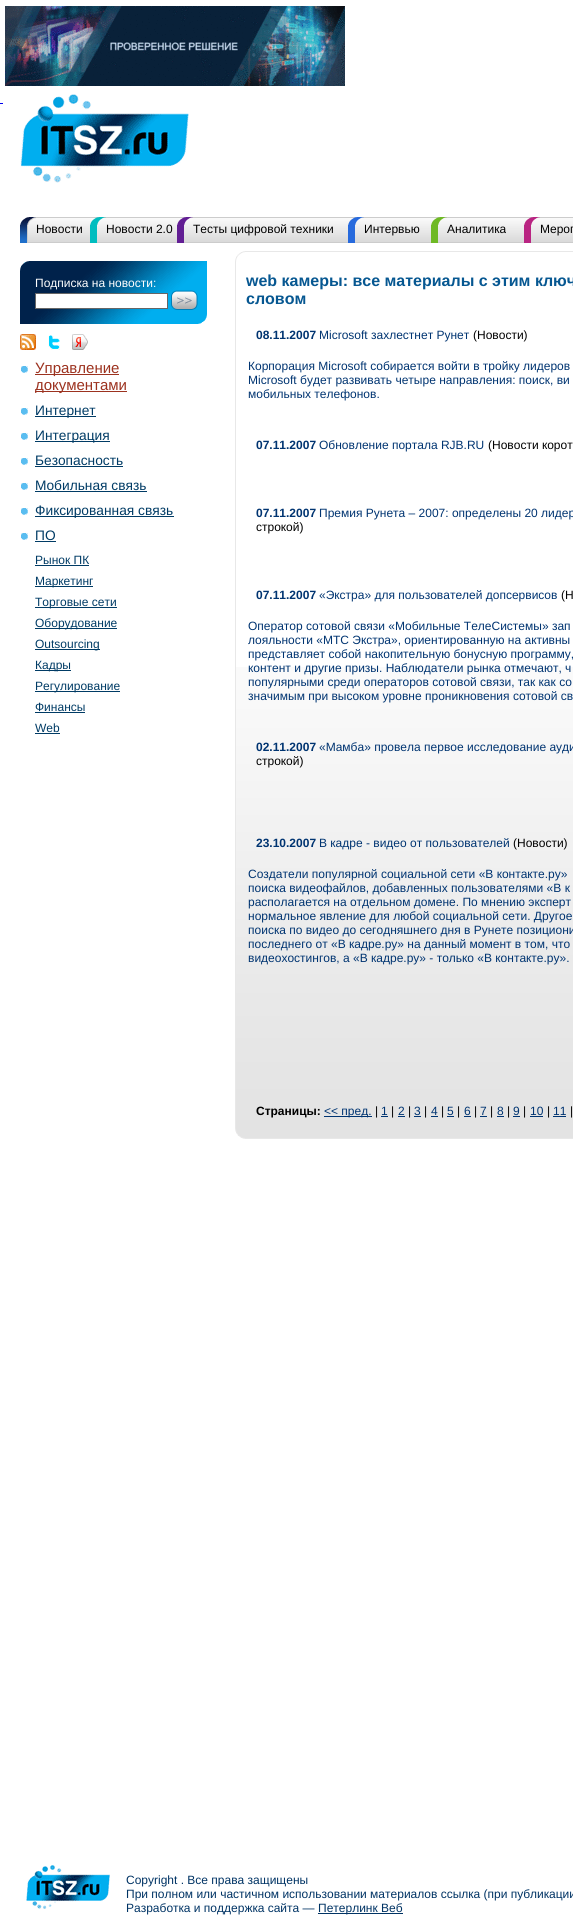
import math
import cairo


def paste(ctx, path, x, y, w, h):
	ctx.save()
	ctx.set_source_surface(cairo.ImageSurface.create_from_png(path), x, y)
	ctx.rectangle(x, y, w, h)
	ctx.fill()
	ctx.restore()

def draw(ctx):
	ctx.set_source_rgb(1, 1, 1)
	ctx.paint()
	paste(ctx, 'media/1.png', 5, 6, 340, 80)
	paste(ctx, 'media/2.png', 20, 94, 169, 89)
	ctx.set_source_rgb(0, 0, 0.933)
	ctx.rectangle(0, 103, 3, 1)
	ctx.fill()
	paste(ctx, 'media/3.png', 36, 217, 537, 26)
	paste(ctx, 'media/4.png', 20, 217, 16, 26)
	ctx.select_font_face('Liberation Sans')
	ctx.set_font_size(12)
	ctx.set_source_rgb(0, 0, 0)
	ctx.move_to(36, 233)
	ctx.show_text('Новости')
	paste(ctx, 'media/5.png', 90, 217, 16, 26)
	ctx.move_to(106, 233)
	ctx.show_text('Новости 2.0')
	paste(ctx, 'media/6.png', 177, 217, 16, 26)
	ctx.move_to(193, 233)
	ctx.show_text('Тесты цифровой техники')
	paste(ctx, 'media/7.png', 348, 217, 16, 26)
	ctx.move_to(364, 233)
	ctx.show_text('Интервью')
	paste(ctx, 'media/8.png', 431, 217, 16, 26)
	ctx.move_to(447, 233)
	ctx.show_text('Аналитика')
	paste(ctx, 'media/9.png', 524, 217, 16, 26)
	ctx.move_to(540, 233)
	ctx.show_text('Мероп')
	paste(ctx, 'media/10.png', 20, 261, 187, 63)
	ctx.set_source_rgb(1, 1, 1)
	ctx.move_to(35, 287)
	ctx.show_text('Подписка на новости:')
	ctx.rectangle(35.5, 293.5, 132, 15)
	ctx.fill_preserve()
	ctx.set_source_rgb(0.4, 0.4, 0.4)
	ctx.set_line_width(1)
	ctx.stroke()
	paste(ctx, 'media/11.png', 171, 290, 27, 20)
	paste(ctx, 'media/12.png', 20, 334, 16, 16)
	paste(ctx, 'media/13.png', 48, 335, 12, 15)
	paste(ctx, 'media/14.png', 72, 334, 16, 16)
	paste(ctx, 'media/15.png', 21, 366, 7, 7)
	ctx.set_source_rgb(0.612, 0.196, 0.122)
	ctx.rectangle(35, 374, 84, 1)
	ctx.fill()
	ctx.set_font_size(15)
	ctx.move_to(35, 373)
	ctx.show_text('Управление')
	ctx.rectangle(35, 391, 92, 1)
	ctx.fill()
	ctx.move_to(35, 390)
	ctx.show_text('документами')
	paste(ctx, 'media/15.png', 21, 408, 7, 7)
	ctx.set_source_rgb(0, 0.231, 0.396)
	ctx.rectangle(35, 416, 61, 1)
	ctx.fill()
	ctx.set_font_size(13.75)
	ctx.move_to(35, 415)
	ctx.show_text('Интернет')
	paste(ctx, 'media/15.png', 21, 433, 7, 7)
	ctx.rectangle(35, 441, 75, 1)
	ctx.fill()
	ctx.move_to(35, 440)
	ctx.show_text('Интеграция')
	paste(ctx, 'media/15.png', 21, 458, 7, 7)
	ctx.move_to(35, 465)
	ctx.show_text('Безопасность')
	ctx.rectangle(35, 466, 88, 1)
	ctx.fill()
	paste(ctx, 'media/15.png', 21, 483, 7, 7)
	ctx.move_to(35, 490)
	ctx.show_text('Мобильная связь')
	ctx.rectangle(35, 491, 112, 1)
	ctx.fill()
	paste(ctx, 'media/15.png', 21, 508, 7, 7)
	ctx.rectangle(35, 516, 139, 1)
	ctx.fill()
	ctx.move_to(35, 515)
	ctx.show_text('Фиксированная связь')
	paste(ctx, 'media/15.png', 21, 533, 7, 7)
	ctx.move_to(35, 540)
	ctx.show_text('ПО')
	ctx.rectangle(35, 541, 21, 1)
	ctx.fill()
	ctx.set_font_size(12)
	ctx.move_to(35, 564)
	ctx.show_text('Рынок ПК')
	ctx.rectangle(35, 565, 54, 1)
	ctx.fill()
	ctx.rectangle(35, 586, 58, 1)
	ctx.fill()
	ctx.move_to(35, 585)
	ctx.show_text('Маркетинг')
	ctx.rectangle(35, 607, 82, 1)
	ctx.fill()
	ctx.move_to(35, 606)
	ctx.show_text('Торговые сети')
	ctx.rectangle(35, 628, 82, 1)
	ctx.fill()
	ctx.move_to(35, 627)
	ctx.show_text('Оборудование')
	ctx.rectangle(35, 649, 65, 1)
	ctx.fill()
	ctx.move_to(35, 648)
	ctx.show_text('Outsourcing')
	ctx.rectangle(35, 670, 36, 1)
	ctx.fill()
	ctx.move_to(35, 669)
	ctx.show_text('Кадры')
	ctx.rectangle(35, 691, 85, 1)
	ctx.fill()
	ctx.move_to(35, 690)
	ctx.show_text('Регулирование')
	ctx.move_to(35, 711)
	ctx.show_text('Финансы')
	ctx.rectangle(35, 712, 50, 1)
	ctx.fill()
	ctx.move_to(35, 732)
	ctx.show_text('Web')
	ctx.rectangle(35, 733, 25, 1)
	ctx.fill()
	paste(ctx, 'media/16.png', 236, 667, 337, 471)
	paste(ctx, 'media/17.png', 235, 251, 11, 11)
	ctx.set_source_rgb(0.91, 0.91, 0.91)
	ctx.rectangle(246, 251, 327, 1)
	ctx.fill()
	ctx.rectangle(235, 262, 1, 866)
	ctx.fill()
	ctx.select_font_face('Liberation Sans', cairo.FONT_SLANT_NORMAL, cairo.FONT_WEIGHT_BOLD)
	ctx.set_font_size(16)
	ctx.set_source_rgb(0.027, 0.341, 0.569)
	ctx.move_to(246, 286)
	ctx.show_text('web камеры: все материалы с этим ключ')
	ctx.move_to(246, 304)
	ctx.show_text('словом')
	ctx.set_font_size(12)
	ctx.set_source_rgb(0, 0.204, 0.443)
	ctx.move_to(256, 339)
	ctx.show_text('08.11.2007')
	ctx.select_font_face('Liberation Sans')
	ctx.move_to(319, 339)
	ctx.show_text('Microsoft захлестнет Рунет')
	ctx.set_source_rgb(0, 0, 0)
	ctx.move_to(473, 339)
	ctx.show_text('(Новости)')
	ctx.set_source_rgb(0, 0.204, 0.443)
	for x, y, s in [
		(248, 370, 'Корпорация Microsoft собирается войти в тройку лидеров'),
		(248, 384, 'Microsoft будет развивать четыре направления: поиск, ви'),
		(248, 398, 'мобильных телефонов.'),
	]:
		ctx.move_to(x, y)
		ctx.show_text(s)
	ctx.select_font_face('Liberation Sans', cairo.FONT_SLANT_NORMAL, cairo.FONT_WEIGHT_BOLD)
	ctx.move_to(256, 449)
	ctx.show_text('07.11.2007')
	ctx.select_font_face('Liberation Sans')
	ctx.move_to(319, 449)
	ctx.show_text('Обновление портала RJB.RU')
	ctx.set_source_rgb(0, 0, 0)
	ctx.move_to(488, 449)
	ctx.show_text('(Новости корот')
	ctx.select_font_face('Liberation Sans', cairo.FONT_SLANT_NORMAL, cairo.FONT_WEIGHT_BOLD)
	ctx.set_source_rgb(0, 0.204, 0.443)
	ctx.move_to(256, 517)
	ctx.show_text('07.11.2007')
	ctx.select_font_face('Liberation Sans')
	ctx.move_to(319, 517)
	ctx.show_text('Премия Рунета – 2007: определены 20 лидер')
	ctx.set_source_rgb(0, 0, 0)
	ctx.move_to(256, 531)
	ctx.show_text('строкой)')
	ctx.select_font_face('Liberation Sans', cairo.FONT_SLANT_NORMAL, cairo.FONT_WEIGHT_BOLD)
	ctx.set_source_rgb(0, 0.204, 0.443)
	ctx.move_to(256, 599)
	ctx.show_text('07.11.2007')
	ctx.select_font_face('Liberation Sans')
	ctx.move_to(319, 599)
	ctx.show_text('«Экстра» для пользователей допсервисов')
	ctx.set_source_rgb(0, 0, 0)
	ctx.move_to(561, 599)
	ctx.show_text('(Н')
	ctx.set_source_rgb(0, 0.204, 0.443)
	for x, y, s in [
		(248, 630, 'Оператор сотовой связи «Мобильные ТелеСистемы» зап'),
		(248, 644, 'лояльности «МТС Экстра», ориентированную на активны'),
		(248, 658, 'представляет собой накопительную бонусную программу,'),
		(248, 672, 'контент и другие призы. Наблюдатели рынка отмечают, ч'),
		(248, 686, 'популярными среди операторов сотовой связи, так как со'),
		(248, 700, 'значимым при высоком уровне проникновения сотовой св'),
	]:
		ctx.move_to(x, y)
		ctx.show_text(s)
	ctx.select_font_face('Liberation Sans', cairo.FONT_SLANT_NORMAL, cairo.FONT_WEIGHT_BOLD)
	ctx.move_to(256, 751)
	ctx.show_text('02.11.2007')
	ctx.select_font_face('Liberation Sans')
	ctx.move_to(319, 751)
	ctx.show_text('«Мамба» провела первое исследование ауди')
	ctx.set_source_rgb(0, 0, 0)
	ctx.move_to(256, 765)
	ctx.show_text('строкой)')
	ctx.select_font_face('Liberation Sans', cairo.FONT_SLANT_NORMAL, cairo.FONT_WEIGHT_BOLD)
	ctx.set_source_rgb(0, 0.204, 0.443)
	ctx.move_to(256, 847)
	ctx.show_text('23.10.2007')
	ctx.select_font_face('Liberation Sans')
	ctx.move_to(319, 847)
	ctx.show_text('В кадре - видео от пользователей')
	ctx.set_source_rgb(0, 0, 0)
	ctx.move_to(513, 847)
	ctx.show_text('(Новости)')
	ctx.set_source_rgb(0, 0.204, 0.443)
	for x, y, s in [
		(248, 878, 'Создатели популярной социальной сети «В контакте.ру»'),
		(248, 892, 'поиска видеофайлов, добавленных пользователями «В к'),
		(248, 906, 'располагается на отдельном домене. По мнению эксперт'),
		(248, 920, 'нормальное явление для любой социальной сети. Другое'),
		(248, 934, 'поиска по видео до сегодняшнего дня в Рунете позициони'),
		(248, 948, 'последнего от «В кадре.ру» на данный момент в том, что'),
		(248, 962, 'видеохостингов, а «В кадре.ру» - только «В контакте.ру».'),
	]:
		ctx.move_to(x, y)
		ctx.show_text(s)
	ctx.select_font_face('Liberation Sans', cairo.FONT_SLANT_NORMAL, cairo.FONT_WEIGHT_BOLD)
	ctx.set_source_rgb(0, 0, 0)
	ctx.move_to(256, 1115)
	ctx.show_text('Страницы:')
	ctx.set_source_rgb(0, 0.204, 0.443)
	ctx.rectangle(324, 1116, 48, 1)
	ctx.fill()
	ctx.select_font_face('Liberation Sans')
	ctx.move_to(324, 1115)
	ctx.show_text('<< пред.')
	ctx.set_source_rgb(0, 0, 0)
	ctx.move_to(375, 1115)
	ctx.show_text('|')
	ctx.set_source_rgb(0, 0.204, 0.443)
	ctx.move_to(381, 1115)
	ctx.show_text('1')
	ctx.rectangle(381, 1116, 7, 1)
	ctx.fill()
	ctx.set_source_rgb(0, 0, 0)
	ctx.move_to(391, 1115)
	ctx.show_text('|')
	ctx.set_source_rgb(0, 0.204, 0.443)
	ctx.move_to(398, 1115)
	ctx.show_text('2')
	ctx.rectangle(398, 1116, 7, 1)
	ctx.fill()
	ctx.set_source_rgb(0, 0, 0)
	ctx.move_to(408, 1115)
	ctx.show_text('|')
	ctx.set_source_rgb(0, 0.204, 0.443)
	ctx.move_to(414, 1115)
	ctx.show_text('3')
	ctx.rectangle(414, 1116, 7, 1)
	ctx.fill()
	ctx.set_source_rgb(0, 0, 0)
	ctx.move_to(424, 1115)
	ctx.show_text('|')
	ctx.set_source_rgb(0, 0.204, 0.443)
	ctx.move_to(431, 1115)
	ctx.show_text('4')
	ctx.rectangle(431, 1116, 7, 1)
	ctx.fill()
	ctx.set_source_rgb(0, 0, 0)
	ctx.move_to(441, 1115)
	ctx.show_text('|')
	ctx.set_source_rgb(0, 0.204, 0.443)
	ctx.move_to(447, 1115)
	ctx.show_text('5')
	ctx.rectangle(447, 1116, 7, 1)
	ctx.fill()
	ctx.set_source_rgb(0, 0, 0)
	ctx.move_to(457, 1115)
	ctx.show_text('|')
	ctx.set_source_rgb(0, 0.204, 0.443)
	ctx.move_to(464, 1115)
	ctx.show_text('6')
	ctx.rectangle(464, 1116, 7, 1)
	ctx.fill()
	ctx.set_source_rgb(0, 0, 0)
	ctx.move_to(474, 1115)
	ctx.show_text('|')
	ctx.set_source_rgb(0, 0.204, 0.443)
	ctx.move_to(480, 1115)
	ctx.show_text('7')
	ctx.rectangle(480, 1116, 7, 1)
	ctx.fill()
	ctx.set_source_rgb(0, 0, 0)
	ctx.move_to(490, 1115)
	ctx.show_text('|')
	ctx.set_source_rgb(0, 0.204, 0.443)
	ctx.move_to(497, 1115)
	ctx.show_text('8')
	ctx.rectangle(497, 1116, 7, 1)
	ctx.fill()
	ctx.set_source_rgb(0, 0, 0)
	ctx.move_to(507, 1115)
	ctx.show_text('|')
	ctx.set_source_rgb(0, 0.204, 0.443)
	ctx.move_to(513, 1115)
	ctx.show_text('9')
	ctx.rectangle(513, 1116, 7, 1)
	ctx.fill()
	ctx.set_source_rgb(0, 0, 0)
	ctx.move_to(523, 1115)
	ctx.show_text('|')
	ctx.set_source_rgb(0, 0.204, 0.443)
	ctx.move_to(530, 1115)
	ctx.show_text('10')
	ctx.rectangle(530, 1116, 13, 1)
	ctx.fill()
	ctx.set_source_rgb(0, 0, 0)
	ctx.move_to(547, 1115)
	ctx.show_text('|')
	ctx.set_source_rgb(0, 0.204, 0.443)
	ctx.move_to(553, 1115)
	ctx.show_text('11')
	ctx.rectangle(553, 1116, 13, 1)
	ctx.fill()
	ctx.set_source_rgb(0, 0, 0)
	ctx.move_to(570, 1115)
	ctx.show_text('|')
	paste(ctx, 'media/18.png', 235, 1128, 11, 11)
	ctx.set_source_rgb(0.91, 0.91, 0.91)
	ctx.rectangle(246, 1138, 327, 1)
	ctx.fill()
	paste(ctx, 'media/19.png', 26, 1865, 84, 44)
	ctx.set_source_rgb(0, 0.2, 0.392)
	for x, y, s in [
		(126, 1884, 'Copyright . Все права защищены'),
		(126, 1898, 'При полном или частичном использовании материалов ссылка (при публикации'),
		(126, 1912, 'Разработка и поддержка сайта —'),
	]:
		ctx.move_to(x, y)
		ctx.show_text(s)
	ctx.rectangle(318, 1913, 85, 1)
	ctx.fill()
	ctx.move_to(318, 1912)
	ctx.show_text('Петерлинк Веб')


surface = cairo.ImageSurface(cairo.FORMAT_RGB24, 573, 1923)
ctx = cairo.Context(surface)
options = cairo.FontOptions()
options.set_hint_metrics(cairo.HINT_METRICS_OFF)
options.set_hint_style(cairo.HINT_STYLE_NONE)
ctx.set_font_options(options)
ctx.set_miter_limit(4)
draw(ctx)
surface.write_to_png('image.png')
